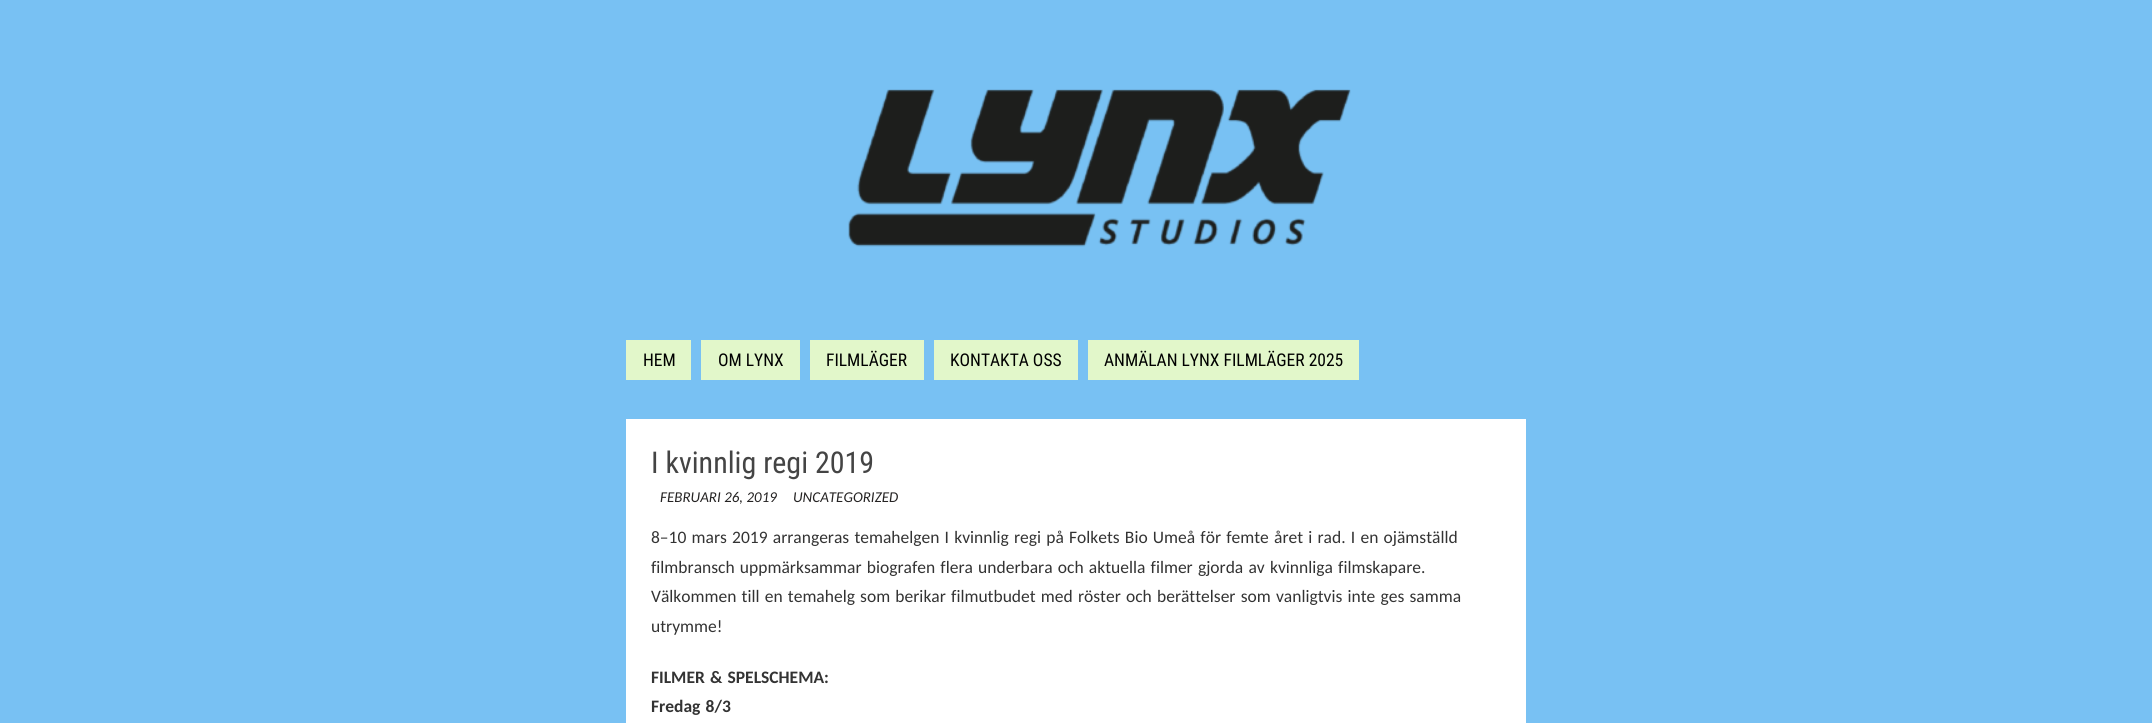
import math
import cairo


def write_spaced(ctx, x, y, s, letter, word):
	ctx.move_to(x, y)
	for ch in s:
		ctx.show_text(ch)
		ctx.rel_move_to(letter + word * (ch == ' '), 0)

def paste(ctx, path, x, y, w, h):
	ctx.save()
	ctx.set_source_surface(cairo.ImageSurface.create_from_png(path), x, y)
	ctx.rectangle(x, y, w, h)
	ctx.fill()
	ctx.restore()

def draw(ctx):
	ctx.set_source_rgb(0.471, 0.757, 0.953)
	ctx.paint()
	paste(ctx, 'media/1.png', 848, 89, 503, 158)
	ctx.set_source_rgb(0.886, 0.965, 0.792)
	ctx.rectangle(626, 340, 65, 40)
	ctx.fill()
	ctx.select_font_face('Roboto Condensed')
	ctx.set_font_size(17.5)
	ctx.set_source_rgb(0, 0, 0)
	ctx.move_to(643, 366)
	ctx.show_text('HEM')
	ctx.set_source_rgb(0.886, 0.965, 0.792)
	ctx.rectangle(701, 340, 99, 40)
	ctx.fill()
	ctx.set_source_rgb(0, 0, 0)
	ctx.move_to(718, 366)
	ctx.show_text('OM LYNX')
	ctx.set_source_rgb(0.886, 0.965, 0.792)
	ctx.rectangle(810, 340, 114, 40)
	ctx.fill()
	ctx.set_source_rgb(0, 0, 0)
	ctx.move_to(826, 366)
	ctx.show_text('FILMLÄGER')
	ctx.set_source_rgb(0.886, 0.965, 0.792)
	ctx.rectangle(934, 340, 144, 40)
	ctx.fill()
	ctx.set_source_rgb(0, 0, 0)
	ctx.move_to(950, 366)
	ctx.show_text('KONTAKTA OSS')
	ctx.set_source_rgb(0.886, 0.965, 0.792)
	ctx.rectangle(1088, 340, 271, 40)
	ctx.fill()
	ctx.set_source_rgb(0, 0, 0)
	ctx.move_to(1104, 366)
	ctx.show_text('ANMÄLAN LYNX FILMLÄGER 2025')
	ctx.set_source_rgb(1, 1, 1)
	ctx.rectangle(626, 419, 900, 304)
	ctx.fill()
	ctx.set_font_size(30)
	ctx.set_source_rgb(0.267, 0.267, 0.267)
	ctx.move_to(651, 473)
	ctx.show_text('I kvinnlig regi 2019')
	ctx.select_font_face('Carlito', cairo.FONT_SLANT_ITALIC)
	ctx.set_font_size(15)
	ctx.set_source_rgb(0.145, 0.137, 0.137)
	ctx.move_to(660, 502)
	ctx.show_text('FEBRUARI 26, 2019')
	ctx.move_to(793, 502)
	ctx.show_text('UNCATEGORIZED')
	ctx.select_font_face('Carlito')
	ctx.set_font_size(17.5)
	ctx.set_source_rgb(0.2, 0.2, 0.2)
	for x, y, s in [
		(651, 543, '8–10 mars 2019 arrangeras temahelgen I kvinnlig regi på Folkets Bio Umeå för femte året i rad. I en ojämställd'),
		(651, 573, 'filmbransch uppmärksammar biografen flera underbara och aktuella filmer gjorda av kvinnliga filmskapare.'),
		(651, 602, 'Välkommen till en temahelg som berikar filmutbudet med röster och berättelser som vanligtvis inte ges samma'),
	]:
		write_spaced(ctx, x, y, s, 0, 1.25)
	ctx.move_to(651, 632)
	ctx.show_text('utrymme!')
	ctx.select_font_face('Carlito', cairo.FONT_SLANT_NORMAL, cairo.FONT_WEIGHT_BOLD)
	write_spaced(ctx, 651, 683, 'FILMER & SPELSCHEMA:', 0, 1.25)
	write_spaced(ctx, 651, 712, 'Fredag 8/3', 0, 1.25)


surface = cairo.ImageSurface(cairo.FORMAT_RGB24, 2152, 723)
ctx = cairo.Context(surface)
options = cairo.FontOptions()
options.set_hint_metrics(cairo.HINT_METRICS_OFF)
options.set_hint_style(cairo.HINT_STYLE_NONE)
ctx.set_font_options(options)
ctx.set_miter_limit(4)
draw(ctx)
surface.write_to_png('image.png')
